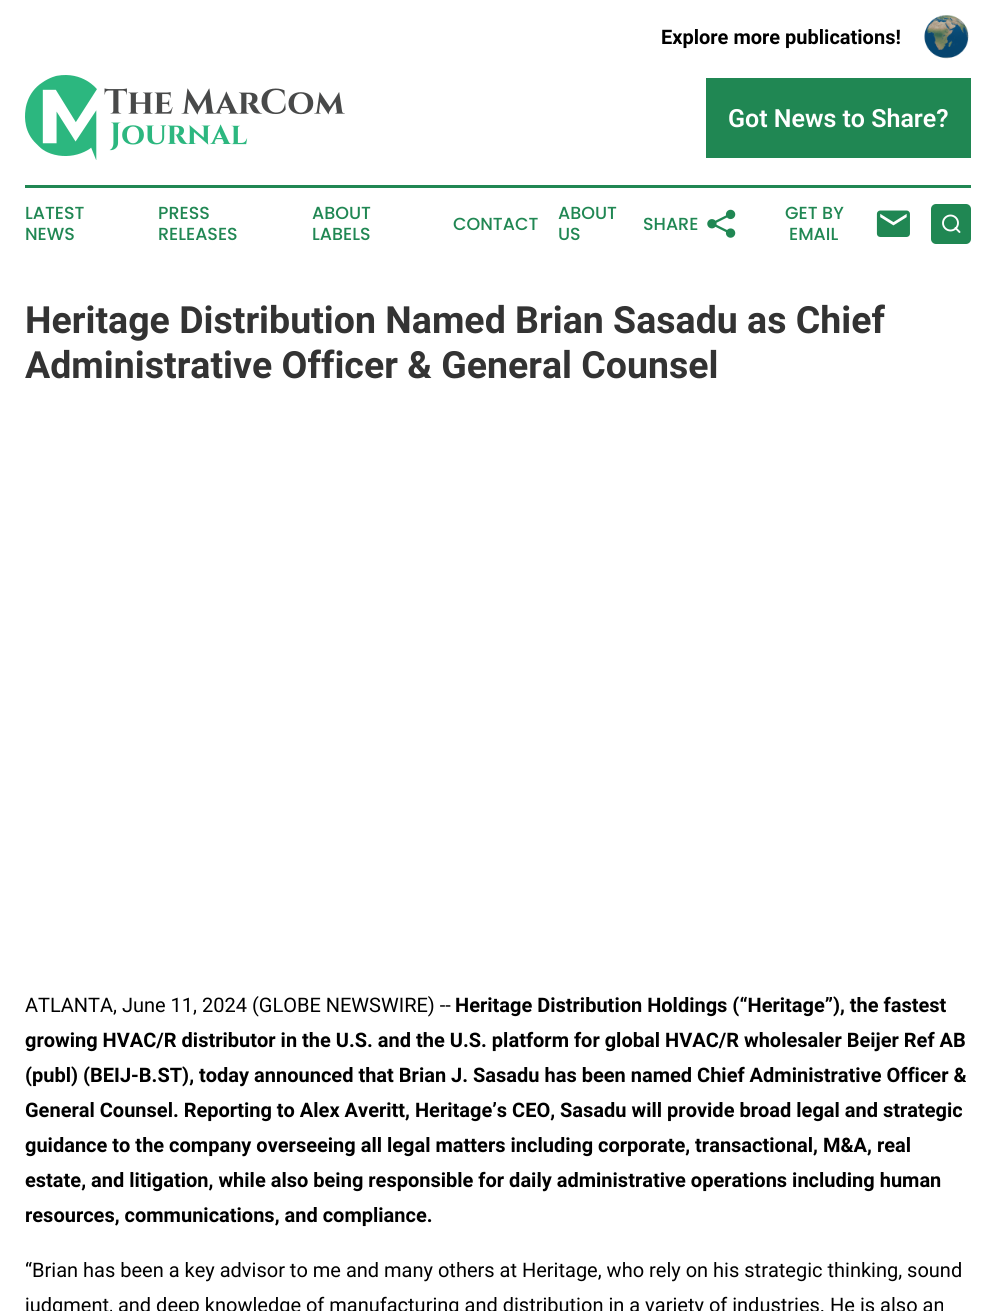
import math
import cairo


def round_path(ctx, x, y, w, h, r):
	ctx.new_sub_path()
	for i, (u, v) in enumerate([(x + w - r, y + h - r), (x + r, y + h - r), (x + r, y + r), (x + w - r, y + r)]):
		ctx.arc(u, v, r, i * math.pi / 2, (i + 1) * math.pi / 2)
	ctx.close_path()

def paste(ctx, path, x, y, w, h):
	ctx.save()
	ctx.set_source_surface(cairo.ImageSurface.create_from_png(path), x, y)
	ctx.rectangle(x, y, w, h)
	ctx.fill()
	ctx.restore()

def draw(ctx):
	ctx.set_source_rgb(1, 1, 1)
	ctx.paint()
	ctx.select_font_face('Roboto', cairo.FONT_SLANT_NORMAL, cairo.FONT_WEIGHT_BOLD)
	ctx.set_font_size(20)
	ctx.set_source_rgb(0, 0, 0)
	ctx.move_to(661, 44)
	ctx.show_text('Explore more publications!')
	paste(ctx, 'media/1.png', 924, 15, 45, 44)
	paste(ctx, 'media/2.png', 25, 75, 320, 85)
	ctx.set_source_rgb(0.125, 0.529, 0.325)
	ctx.rectangle(706, 78, 265, 80)
	ctx.fill()
	ctx.select_font_face('Roboto SemiBold')
	ctx.set_font_size(25)
	ctx.set_source_rgb(1, 1, 1)
	ctx.move_to(728, 127)
	ctx.show_text('Got News to Share?')
	ctx.set_source_rgb(0.125, 0.529, 0.325)
	ctx.rectangle(25, 185, 946, 3)
	ctx.fill()
	ctx.select_font_face('Poppins Medium')
	ctx.set_font_size(17.5)
	for x, y, s in [
		(25, 219, 'LATEST'),
		(25, 240, 'NEWS'),
		(158, 219, 'PRESS'),
		(158, 240, 'RELEASES'),
		(312, 219, 'ABOUT'),
		(312, 240, 'LABELS'),
		(453, 230, 'CONTACT'),
		(558, 219, 'ABOUT'),
		(558, 240, 'US'),
		(643, 230, 'SHARE'),
	]:
		ctx.move_to(x, y)
		ctx.show_text(s)
	paste(ctx, 'media/3.png', 707, 209, 29, 29)
	ctx.move_to(785, 219)
	ctx.show_text('GET BY')
	ctx.move_to(789, 240)
	ctx.show_text('EMAIL')
	paste(ctx, 'media/4.png', 876, 210, 34, 27)
	round_path(ctx, 931, 204, 40, 40, 5)
	ctx.fill()
	ctx.arc(950.5, 223, 7.5, 0, 2 * math.pi)
	ctx.set_source_rgb(1, 1, 1)
	ctx.set_line_width(1.9)
	ctx.stroke()
	ctx.new_path()
	ctx.move_to(959.5, 232)
	ctx.line_to(955.5, 228)
	ctx.set_line_cap(cairo.LINE_CAP_ROUND)
	ctx.set_line_join(cairo.LINE_JOIN_ROUND)
	ctx.stroke()
	ctx.select_font_face('Roboto', cairo.FONT_SLANT_NORMAL, cairo.FONT_WEIGHT_BOLD)
	ctx.set_font_size(37.5)
	ctx.set_source_rgb(0.2, 0.2, 0.2)
	ctx.move_to(25, 333)
	ctx.show_text('Heritage Distribution Named Brian Sasadu as Chief')
	ctx.move_to(25, 378)
	ctx.show_text('Administrative Officer & General Counsel')
	ctx.select_font_face('Roboto')
	ctx.set_font_size(20)
	ctx.set_source_rgb(0, 0, 0)
	ctx.move_to(25, 1012)
	ctx.show_text('ATLANTA, June 11, 2024 (GLOBE NEWSWIRE) --')
	ctx.select_font_face('Roboto', cairo.FONT_SLANT_NORMAL, cairo.FONT_WEIGHT_BOLD)
	for x, y, s in [
		(455, 1012, 'Heritage Distribution Holdings (“Heritage”), the fastest'),
		(25, 1047, 'growing HVAC/R distributor in the U.S. and the U.S. platform for global HVAC/R wholesaler Beijer Ref AB'),
		(25, 1082, '(publ) (BEIJ-B.ST), today announced that Brian J. Sasadu has been named Chief Administrative Officer &'),
		(25, 1117, 'General Counsel. Reporting to Alex Averitt, Heritage’s CEO, Sasadu will provide broad legal and strategic'),
		(25, 1152, 'guidance to the company overseeing all legal matters including corporate, transactional, M&A, real'),
		(25, 1187, 'estate, and litigation, while also being responsible for daily administrative operations including human'),
		(25, 1222, 'resources, communications, and compliance.'),
	]:
		ctx.move_to(x, y)
		ctx.show_text(s)
	ctx.select_font_face('Roboto')
	ctx.move_to(25, 1277)
	ctx.show_text('“Brian has been a key advisor to me and many others at Heritage, who rely on his strategic thinking, sound')
	ctx.move_to(25, 1312)
	ctx.show_text('judgment, and deep knowledge of manufacturing and distribution in a variety of industries. He is also an')


surface = cairo.ImageSurface(cairo.FORMAT_RGB24, 996, 1311)
ctx = cairo.Context(surface)
options = cairo.FontOptions()
options.set_hint_metrics(cairo.HINT_METRICS_OFF)
options.set_hint_style(cairo.HINT_STYLE_NONE)
ctx.set_font_options(options)
ctx.set_miter_limit(4)
draw(ctx)
surface.write_to_png('image.png')
